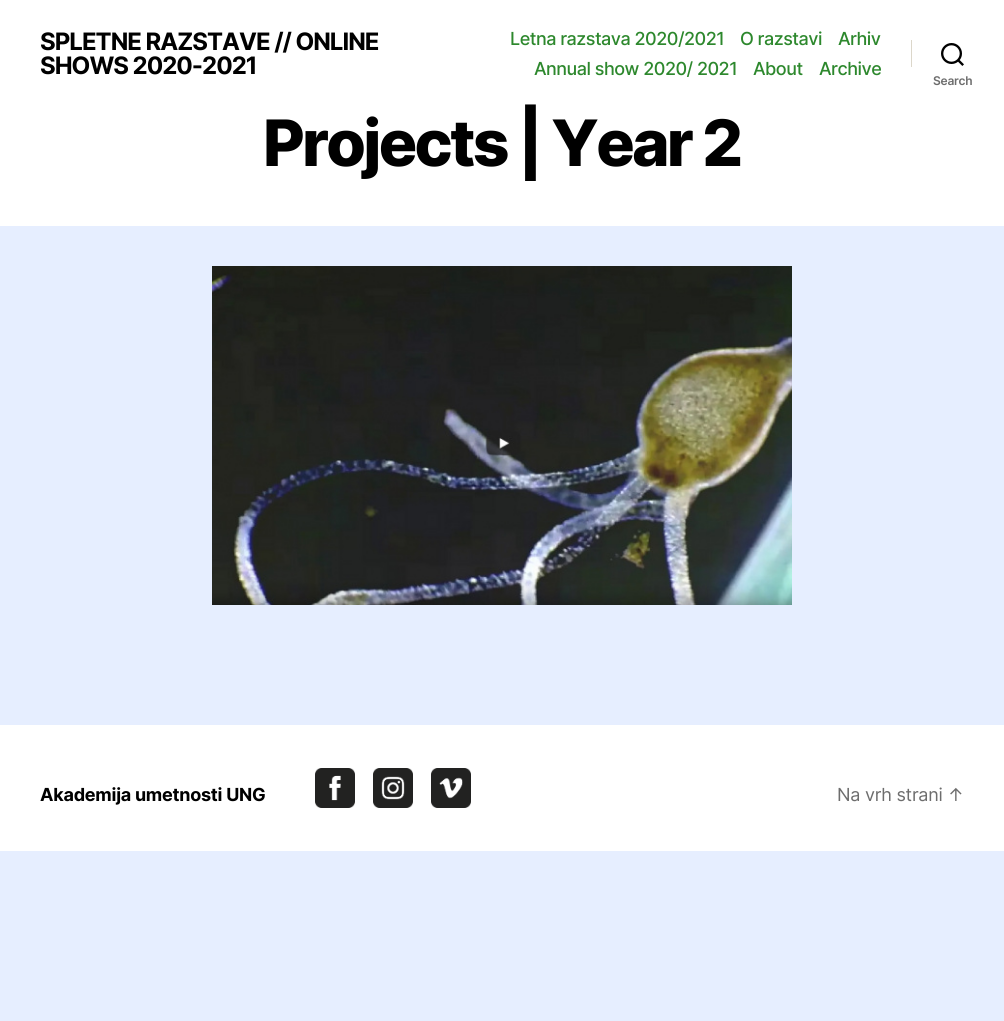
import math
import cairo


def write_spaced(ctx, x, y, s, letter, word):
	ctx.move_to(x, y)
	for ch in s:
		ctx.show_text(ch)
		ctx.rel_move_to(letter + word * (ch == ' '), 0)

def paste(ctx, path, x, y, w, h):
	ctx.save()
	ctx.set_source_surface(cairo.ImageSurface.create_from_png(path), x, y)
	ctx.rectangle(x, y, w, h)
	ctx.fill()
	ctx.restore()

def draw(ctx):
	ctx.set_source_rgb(0.902, 0.933, 1)
	ctx.paint()
	ctx.set_source_rgb(1, 1, 1)
	ctx.rectangle(0, 0, 1004, 226)
	ctx.fill()
	ctx.select_font_face('Inter', cairo.FONT_SLANT_NORMAL, cairo.FONT_WEIGHT_BOLD)
	ctx.set_font_size(24)
	ctx.set_source_rgb(0, 0, 0)
	write_spaced(ctx, 40, 50, 'SPLETNE RAZSTAVE // ONLINE', -1, 0)
	write_spaced(ctx, 40, 74, 'SHOWS 2020-2021', -1, 0)
	ctx.select_font_face('Inter Medium')
	ctx.set_font_size(18)
	ctx.set_source_rgb(0.176, 0.533, 0.176)
	for x, y, s in [
		(510, 45, 'Letna razstava 2020/2021'),
		(740, 45, 'O razstavi'),
		(838, 45, 'Arhiv'),
		(534, 75, 'Annual show 2020/ 2021'),
		(753, 75, 'About'),
		(819, 75, 'Archive'),
	]:
		write_spaced(ctx, x, y, s, -0.5, 0)
	ctx.set_source_rgb(0.863, 0.843, 0.792)
	ctx.rectangle(911, 40, 1, 27)
	ctx.fill()
	paste(ctx, 'media/1.png', 941, 43, 23, 23)
	ctx.select_font_face('Inter SemiBold')
	ctx.set_font_size(12)
	ctx.set_source_rgb(0.427, 0.427, 0.427)
	write_spaced(ctx, 933, 85, 'Search', -0.25, 0)
	ctx.select_font_face('Inter ExtraBold')
	ctx.set_font_size(64)
	ctx.set_source_rgb(0, 0, 0)
	write_spaced(ctx, 263, 166, 'Projects | Year 2', -2.7, 0)
	paste(ctx, 'media/2.png', 212, 266, 580, 339)
	ctx.set_source_rgb(1, 1, 1)
	ctx.rectangle(0, 725, 1004, 126)
	ctx.fill()
	ctx.select_font_face('Inter', cairo.FONT_SLANT_NORMAL, cairo.FONT_WEIGHT_BOLD)
	ctx.set_font_size(18)
	ctx.set_source_rgb(0, 0, 0)
	write_spaced(ctx, 40, 801, 'Akademija umetnosti UNG', -0.25, 0)
	paste(ctx, 'media/3.png', 315, 768, 40, 40)
	paste(ctx, 'media/4.png', 373, 768, 40, 40)
	paste(ctx, 'media/5.png', 431, 768, 40, 40)
	ctx.select_font_face('Inter')
	ctx.set_source_rgb(0.427, 0.427, 0.427)
	write_spaced(ctx, 837, 801, 'Na vrh strani ↑', -0.25, 0)


surface = cairo.ImageSurface(cairo.FORMAT_RGB24, 1004, 1021)
ctx = cairo.Context(surface)
options = cairo.FontOptions()
options.set_hint_metrics(cairo.HINT_METRICS_OFF)
options.set_hint_style(cairo.HINT_STYLE_NONE)
ctx.set_font_options(options)
ctx.set_miter_limit(4)
draw(ctx)
surface.write_to_png('image.png')
